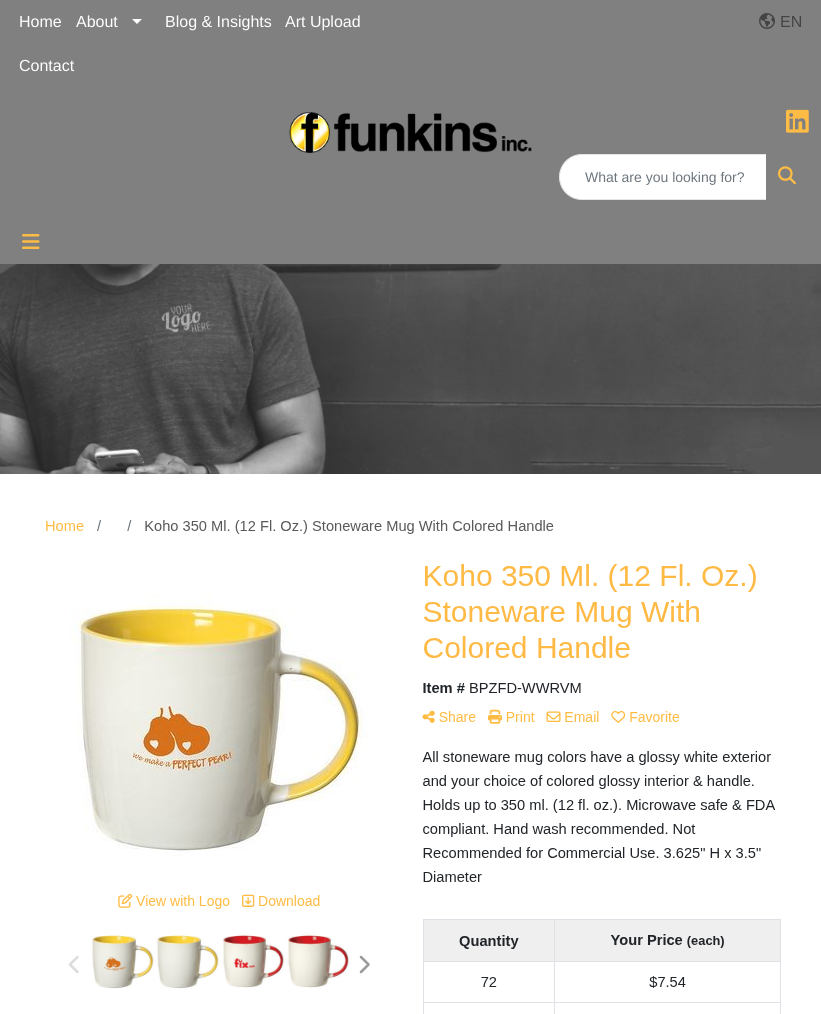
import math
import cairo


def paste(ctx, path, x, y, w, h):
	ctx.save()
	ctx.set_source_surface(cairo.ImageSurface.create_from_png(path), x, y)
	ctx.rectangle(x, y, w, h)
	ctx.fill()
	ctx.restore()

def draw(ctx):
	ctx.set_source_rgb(1, 1, 1)
	ctx.paint()
	ctx.set_source_rgb(0.502, 0.502, 0.502)
	ctx.rectangle(0, 0, 821, 264)
	ctx.fill()
	ctx.select_font_face('Liberation Sans')
	ctx.set_font_size(16)
	ctx.set_source_rgb(1, 1, 1)
	ctx.move_to(19, 27)
	ctx.show_text('Home')
	ctx.move_to(76, 27)
	ctx.show_text('About')
	ctx.new_path()
	ctx.move_to(132, 19)
	ctx.line_to(142, 19)
	ctx.line_to(137, 24)
	ctx.close_path()
	ctx.fill()
	for x, y, s in [
		(165, 27, 'Blog & Insights'),
		(285, 27, 'Art Upload'),
		(19, 71, 'Contact'),
	]:
		ctx.move_to(x, y)
		ctx.show_text(s)
	paste(ctx, 'media/1.png', 759, 13, 16, 16)
	ctx.set_source_rgb(0.267, 0.267, 0.267)
	ctx.move_to(780, 27)
	ctx.show_text('EN')
	paste(ctx, 'media/2.png', 289, 112, 243, 41)
	paste(ctx, 'media/3.png', 786, 109, 23, 24)
	ctx.set_source_rgb(1, 1, 1)
	ctx.new_path()
	ctx.move_to(582, 154.5)
	ctx.line_to(766.5, 154.5)
	ctx.line_to(766.5, 199.5)
	ctx.line_to(582, 199.5)
	ctx.curve_to(569.5, 199.5, 559.5, 189.5, 559.5, 177)
	ctx.curve_to(559.5, 164.5, 569.5, 154.5, 582, 154.5)
	ctx.close_path()
	ctx.fill_preserve()
	ctx.set_source_rgb(0.894, 0.894, 0.894)
	ctx.set_line_width(1)
	ctx.stroke()
	ctx.set_font_size(14)
	ctx.set_source_rgb(0.424, 0.459, 0.49)
	ctx.move_to(585, 182)
	ctx.show_text('What are you looking for?')
	ctx.set_source_rgb(0.502, 0.502, 0.502)
	ctx.new_path()
	ctx.move_to(766, 155)
	ctx.line_to(786, 155)
	ctx.curve_to(798, 155, 808, 165, 808, 177)
	ctx.curve_to(808, 189, 798, 199, 786, 199)
	ctx.line_to(766, 199)
	ctx.close_path()
	ctx.fill()
	ctx.set_fill_rule(cairo.FILL_RULE_EVEN_ODD)
	ctx.new_path()
	ctx.move_to(766, 154)
	ctx.line_to(786, 154)
	ctx.curve_to(799, 154, 809, 164, 809, 177)
	ctx.curve_to(809, 190, 799, 200, 786, 200)
	ctx.line_to(766, 200)
	ctx.close_path()
	ctx.move_to(766, 155)
	ctx.line_to(786, 155)
	ctx.curve_to(798, 155, 808, 165, 808, 177)
	ctx.curve_to(808, 189, 798, 199, 786, 199)
	ctx.line_to(766, 199)
	ctx.close_path()
	ctx.fill()
	paste(ctx, 'media/4.png', 778, 166, 18, 19)
	paste(ctx, 'media/5.png', 22, 234, 18, 15)
	paste(ctx, 'media/6.png', 0, 264, 821, 210)
	paste(ctx, 'media/7.png', 46, 520, 735, 494)


surface = cairo.ImageSurface(cairo.FORMAT_RGB24, 821, 1014)
ctx = cairo.Context(surface)
options = cairo.FontOptions()
options.set_hint_metrics(cairo.HINT_METRICS_OFF)
options.set_hint_style(cairo.HINT_STYLE_NONE)
ctx.set_font_options(options)
ctx.set_miter_limit(4)
draw(ctx)
surface.write_to_png('image.png')
